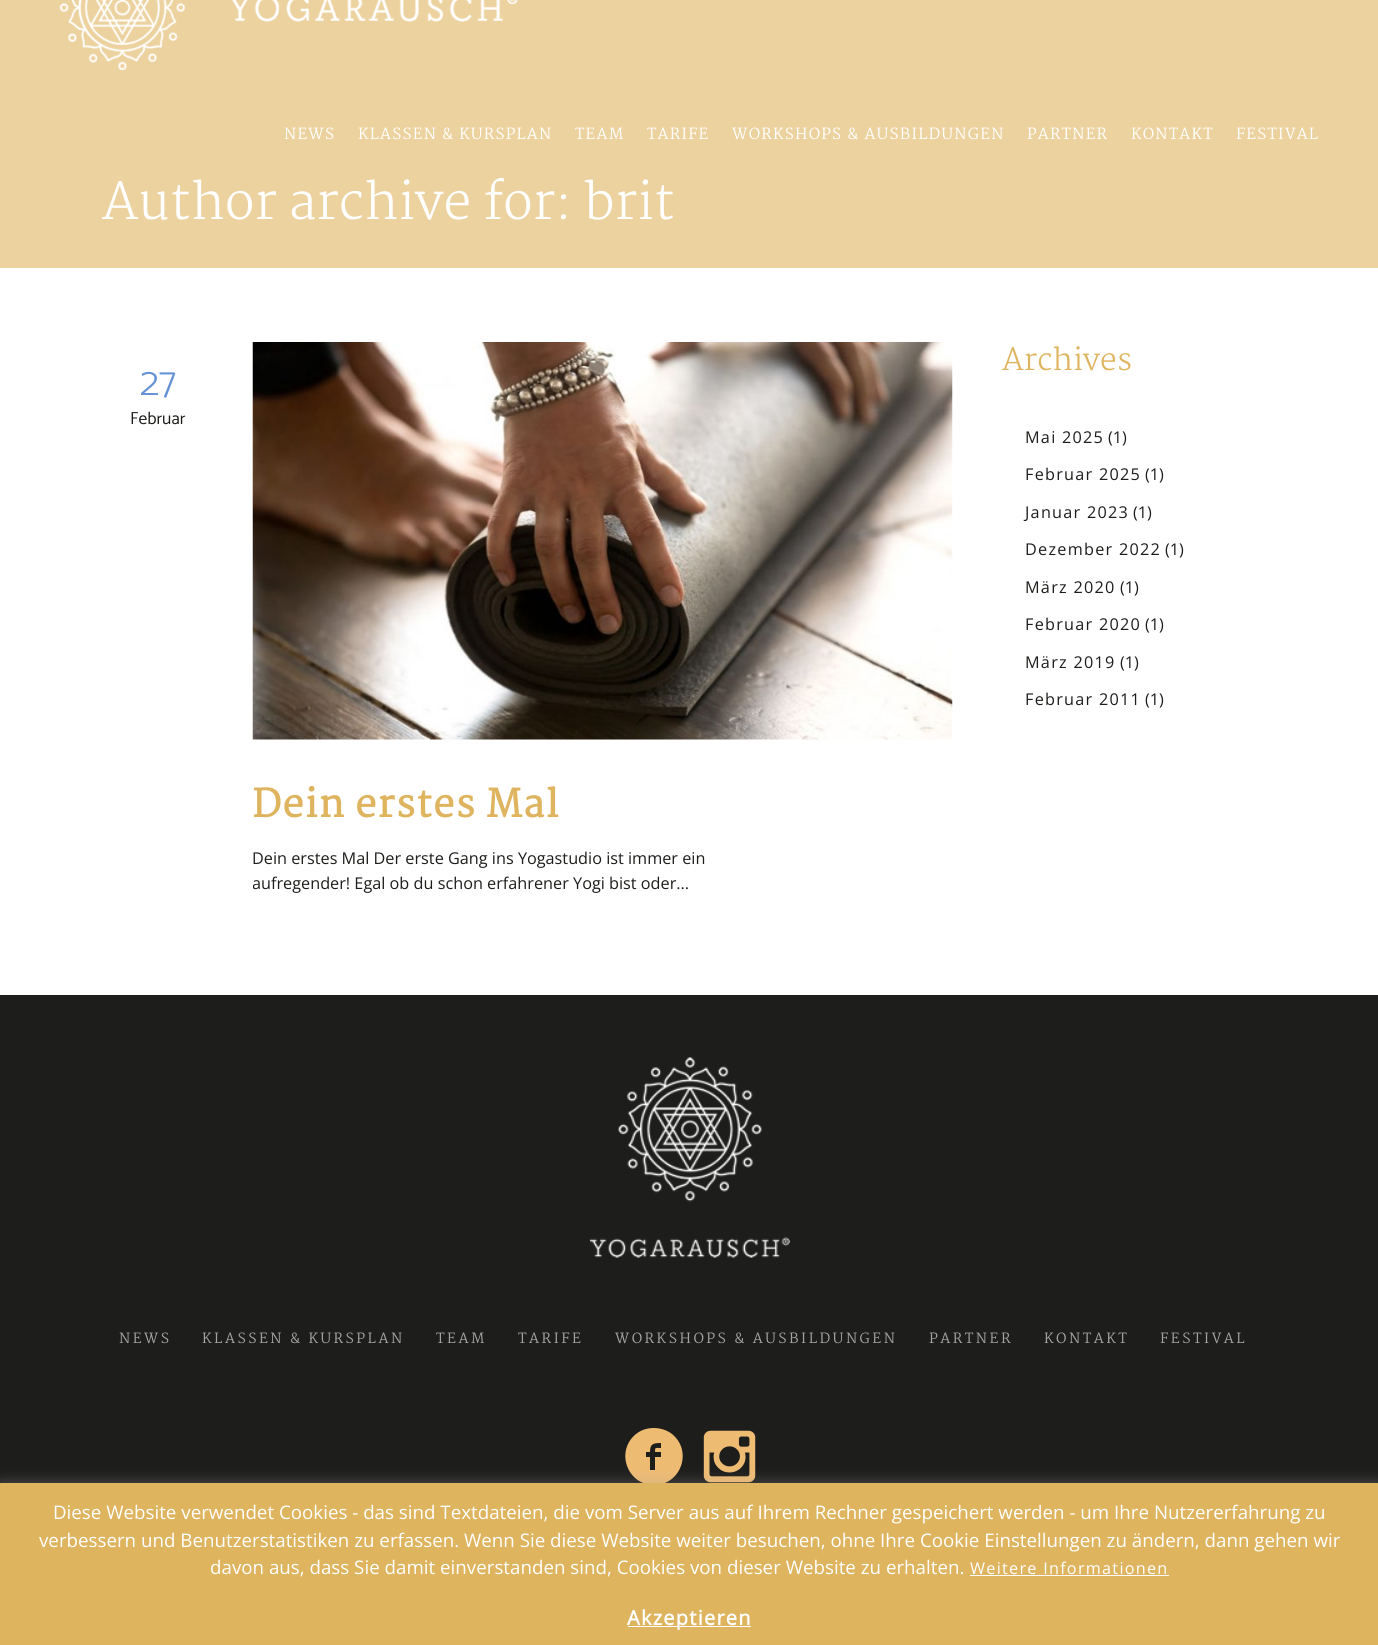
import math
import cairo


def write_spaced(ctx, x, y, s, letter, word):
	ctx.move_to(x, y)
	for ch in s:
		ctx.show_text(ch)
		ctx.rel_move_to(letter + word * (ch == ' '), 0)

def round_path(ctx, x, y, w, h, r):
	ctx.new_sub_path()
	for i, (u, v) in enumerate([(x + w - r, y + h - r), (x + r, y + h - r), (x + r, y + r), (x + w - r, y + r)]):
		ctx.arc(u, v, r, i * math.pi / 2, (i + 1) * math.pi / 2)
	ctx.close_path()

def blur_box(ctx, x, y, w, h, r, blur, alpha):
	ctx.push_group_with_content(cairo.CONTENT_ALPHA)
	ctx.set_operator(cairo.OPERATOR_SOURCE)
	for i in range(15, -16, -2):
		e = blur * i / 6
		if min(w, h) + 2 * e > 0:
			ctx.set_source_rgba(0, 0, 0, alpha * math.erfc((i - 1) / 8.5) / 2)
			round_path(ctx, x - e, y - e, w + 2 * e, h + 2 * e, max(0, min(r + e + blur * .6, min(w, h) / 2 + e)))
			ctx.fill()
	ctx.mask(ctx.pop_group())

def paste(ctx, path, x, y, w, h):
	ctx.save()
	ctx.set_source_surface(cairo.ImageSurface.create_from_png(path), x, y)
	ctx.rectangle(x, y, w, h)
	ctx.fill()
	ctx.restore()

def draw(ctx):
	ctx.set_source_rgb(0.114, 0.114, 0.106)
	ctx.paint()
	ctx.set_source_rgb(0.925, 0.824, 0.624)
	ctx.rectangle(0, 0, 1378, 268)
	ctx.fill()
	paste(ctx, 'media/1.png', 59, 0, 459, 70)
	ctx.select_font_face('Martel')
	ctx.set_font_size(15)
	ctx.set_source_rgb(1, 1, 1)
	for x, y, s in [
		(284, 139, 'NEWS'),
		(358, 139, 'KLASSEN & KURSPLAN'),
		(575, 139, 'TEAM'),
		(647, 139, 'TARIFE'),
		(732, 139, 'WORKSHOPS & AUSBILDUNGEN'),
		(1027, 139, 'PARTNER'),
		(1131, 139, 'KONTAKT'),
		(1236, 139, 'FESTIVAL'),
	]:
		write_spaced(ctx, x, y, s, 1.25, 0)
	ctx.select_font_face('Martel Light')
	ctx.set_font_size(50)
	ctx.move_to(102, 219)
	ctx.show_text('Author archive for: brit')
	ctx.rectangle(0, 268, 1378, 727)
	ctx.fill()
	ctx.select_font_face('Catamaran Thin')
	ctx.set_font_size(40)
	ctx.set_source_rgb(0.396, 0.573, 0.843)
	ctx.move_to(140, 395)
	ctx.show_text('27')
	ctx.select_font_face('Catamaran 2 Thin')
	ctx.set_font_size(17.5)
	ctx.set_source_rgb(0.114, 0.114, 0.106)
	ctx.move_to(130, 424)
	ctx.show_text('Februar')
	paste(ctx, 'media/2.png', 252, 342, 701, 398)
	ctx.select_font_face('Martel', cairo.FONT_SLANT_NORMAL, cairo.FONT_WEIGHT_BOLD)
	ctx.set_font_size(37.5)
	ctx.set_source_rgb(0.875, 0.706, 0.373)
	write_spaced(ctx, 252, 817, 'Dein erstes Mal', 1.25, 0)
	ctx.select_font_face('Open Sans')
	ctx.set_font_size(16.25)
	ctx.set_source_rgb(0.114, 0.114, 0.106)
	ctx.move_to(252, 864)
	ctx.show_text('Dein erstes Mal Der erste Gang ins Yogastudio ist immer ein')
	ctx.save()
	ctx.rectangle(253, 343, 700, 577)
	ctx.clip()
	ctx.move_to(252, 889)
	ctx.show_text('aufregender! Egal ob du schon erfahrener Yogi bist oder...')
	ctx.restore()
	ctx.select_font_face('Martel Light')
	ctx.set_font_size(30)
	ctx.set_source_rgb(0.875, 0.706, 0.373)
	ctx.move_to(1002, 370)
	ctx.show_text('Archives')
	ctx.select_font_face('Open Sans')
	ctx.set_font_size(16.25)
	ctx.set_source_rgb(0.114, 0.114, 0.106)
	write_spaced(ctx, 1025, 443, 'Mai 2025', 1.25, 0)
	ctx.move_to(1108, 443)
	ctx.show_text('(1)')
	write_spaced(ctx, 1025, 480, 'Februar 2025', 1.25, 0)
	ctx.move_to(1145, 480)
	ctx.show_text('(1)')
	write_spaced(ctx, 1025, 518, 'Januar 2023', 1.25, 0)
	ctx.move_to(1133, 518)
	ctx.show_text('(1)')
	write_spaced(ctx, 1025, 555, 'Dezember 2022', 1.25, 0)
	ctx.move_to(1165, 555)
	ctx.show_text('(1)')
	write_spaced(ctx, 1025, 593, 'März 2020', 1.25, 0)
	ctx.move_to(1120, 593)
	ctx.show_text('(1)')
	write_spaced(ctx, 1025, 630, 'Februar 2020', 1.25, 0)
	ctx.move_to(1145, 630)
	ctx.show_text('(1)')
	write_spaced(ctx, 1025, 668, 'März 2019', 1.25, 0)
	ctx.move_to(1120, 668)
	ctx.show_text('(1)')
	write_spaced(ctx, 1025, 705, 'Februar 2011', 1.25, 0)
	ctx.move_to(1145, 705)
	ctx.show_text('(1)')
	paste(ctx, 'media/3.png', 589, 1057, 201, 201)
	ctx.select_font_face('Martel')
	ctx.set_font_size(13.75)
	ctx.set_source_rgb(0.647, 0.647, 0.643)
	for x, y, s in [
		(119, 1343, 'NEWS'),
		(202, 1343, 'KLASSEN & KURSPLAN'),
		(436, 1343, 'TEAM'),
		(518, 1343, 'TARIFE'),
		(615, 1343, 'WORKSHOPS & AUSBILDUNGEN'),
		(929, 1343, 'PARTNER'),
		(1044, 1343, 'KONTAKT'),
		(1160, 1343, 'FESTIVAL'),
	]:
		write_spaced(ctx, x, y, s, 2.5, 0)
	ctx.set_source_rgb(0.933, 0.733, 0.451)
	ctx.new_path()
	ctx.move_to(654, 1428)
	ctx.curve_to(660, 1428, 667, 1430, 672, 1434)
	ctx.curve_to(693, 1451, 681, 1485, 654, 1485)
	ctx.curve_to(627, 1485, 615, 1451, 636, 1434)
	ctx.curve_to(641, 1430, 647, 1428, 654, 1428)
	ctx.close_path()
	ctx.move_to(661, 1448)
	ctx.line_to(661, 1443)
	ctx.curve_to(653, 1443, 650, 1444, 650, 1452)
	ctx.line_to(646, 1452)
	ctx.line_to(646, 1457)
	ctx.line_to(650, 1457)
	ctx.line_to(650, 1470)
	ctx.line_to(655, 1470)
	ctx.line_to(655, 1457)
	ctx.line_to(661, 1457)
	ctx.line_to(661, 1452)
	ctx.line_to(655, 1452)
	ctx.curve_to(655, 1447, 655, 1448, 661, 1448)
	ctx.close_path()
	ctx.fill()
	paste(ctx, 'media/4.png', 703, 1430, 53, 53)
	ctx.set_source_rgb(0.675, 0.671, 0.671)
	blur_box(ctx, 0, 1481, 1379, 163, 0, 6, 0.3)
	ctx.set_source_rgb(0.875, 0.706, 0.373)
	ctx.rectangle(0, 1483, 1378, 162)
	ctx.fill()
	ctx.select_font_face('Open Sans')
	ctx.set_font_size(18.75)
	ctx.set_source_rgb(1, 1, 1)
	for x, y, s in [
		(53, 1519, 'Diese Website verwendet Cookies - das sind Textdateien, die vom Server aus auf Ihrem Rechner gespeichert werden - um Ihre Nutzererfahrung zu'),
		(39, 1547, 'verbessern und Benutzerstatistiken zu erfassen. Wenn Sie diese Website weiter besuchen, ohne Ihre Cookie Einstellungen zu ändern, dann gehen wir'),
		(210, 1574, 'davon aus, dass Sie damit einverstanden sind, Cookies von dieser Website zu erhalten.'),
	]:
		ctx.move_to(x, y)
		ctx.show_text(s)
	ctx.set_font_size(16.25)
	write_spaced(ctx, 970, 1574, 'Weitere Informationen', 1.25, 0)
	ctx.rectangle(970, 1575, 199, 1)
	ctx.fill()
	ctx.rectangle(628, 1626, 123, 1)
	ctx.fill()
	ctx.select_font_face('Open Sans', cairo.FONT_SLANT_NORMAL, cairo.FONT_WEIGHT_BOLD)
	ctx.set_font_size(20)
	write_spaced(ctx, 627, 1625, 'Akzeptieren', 1.25, 0)


surface = cairo.ImageSurface(cairo.FORMAT_RGB24, 1378, 1645)
ctx = cairo.Context(surface)
options = cairo.FontOptions()
options.set_hint_metrics(cairo.HINT_METRICS_OFF)
options.set_hint_style(cairo.HINT_STYLE_NONE)
ctx.set_font_options(options)
ctx.set_miter_limit(4)
draw(ctx)
surface.write_to_png('image.png')
